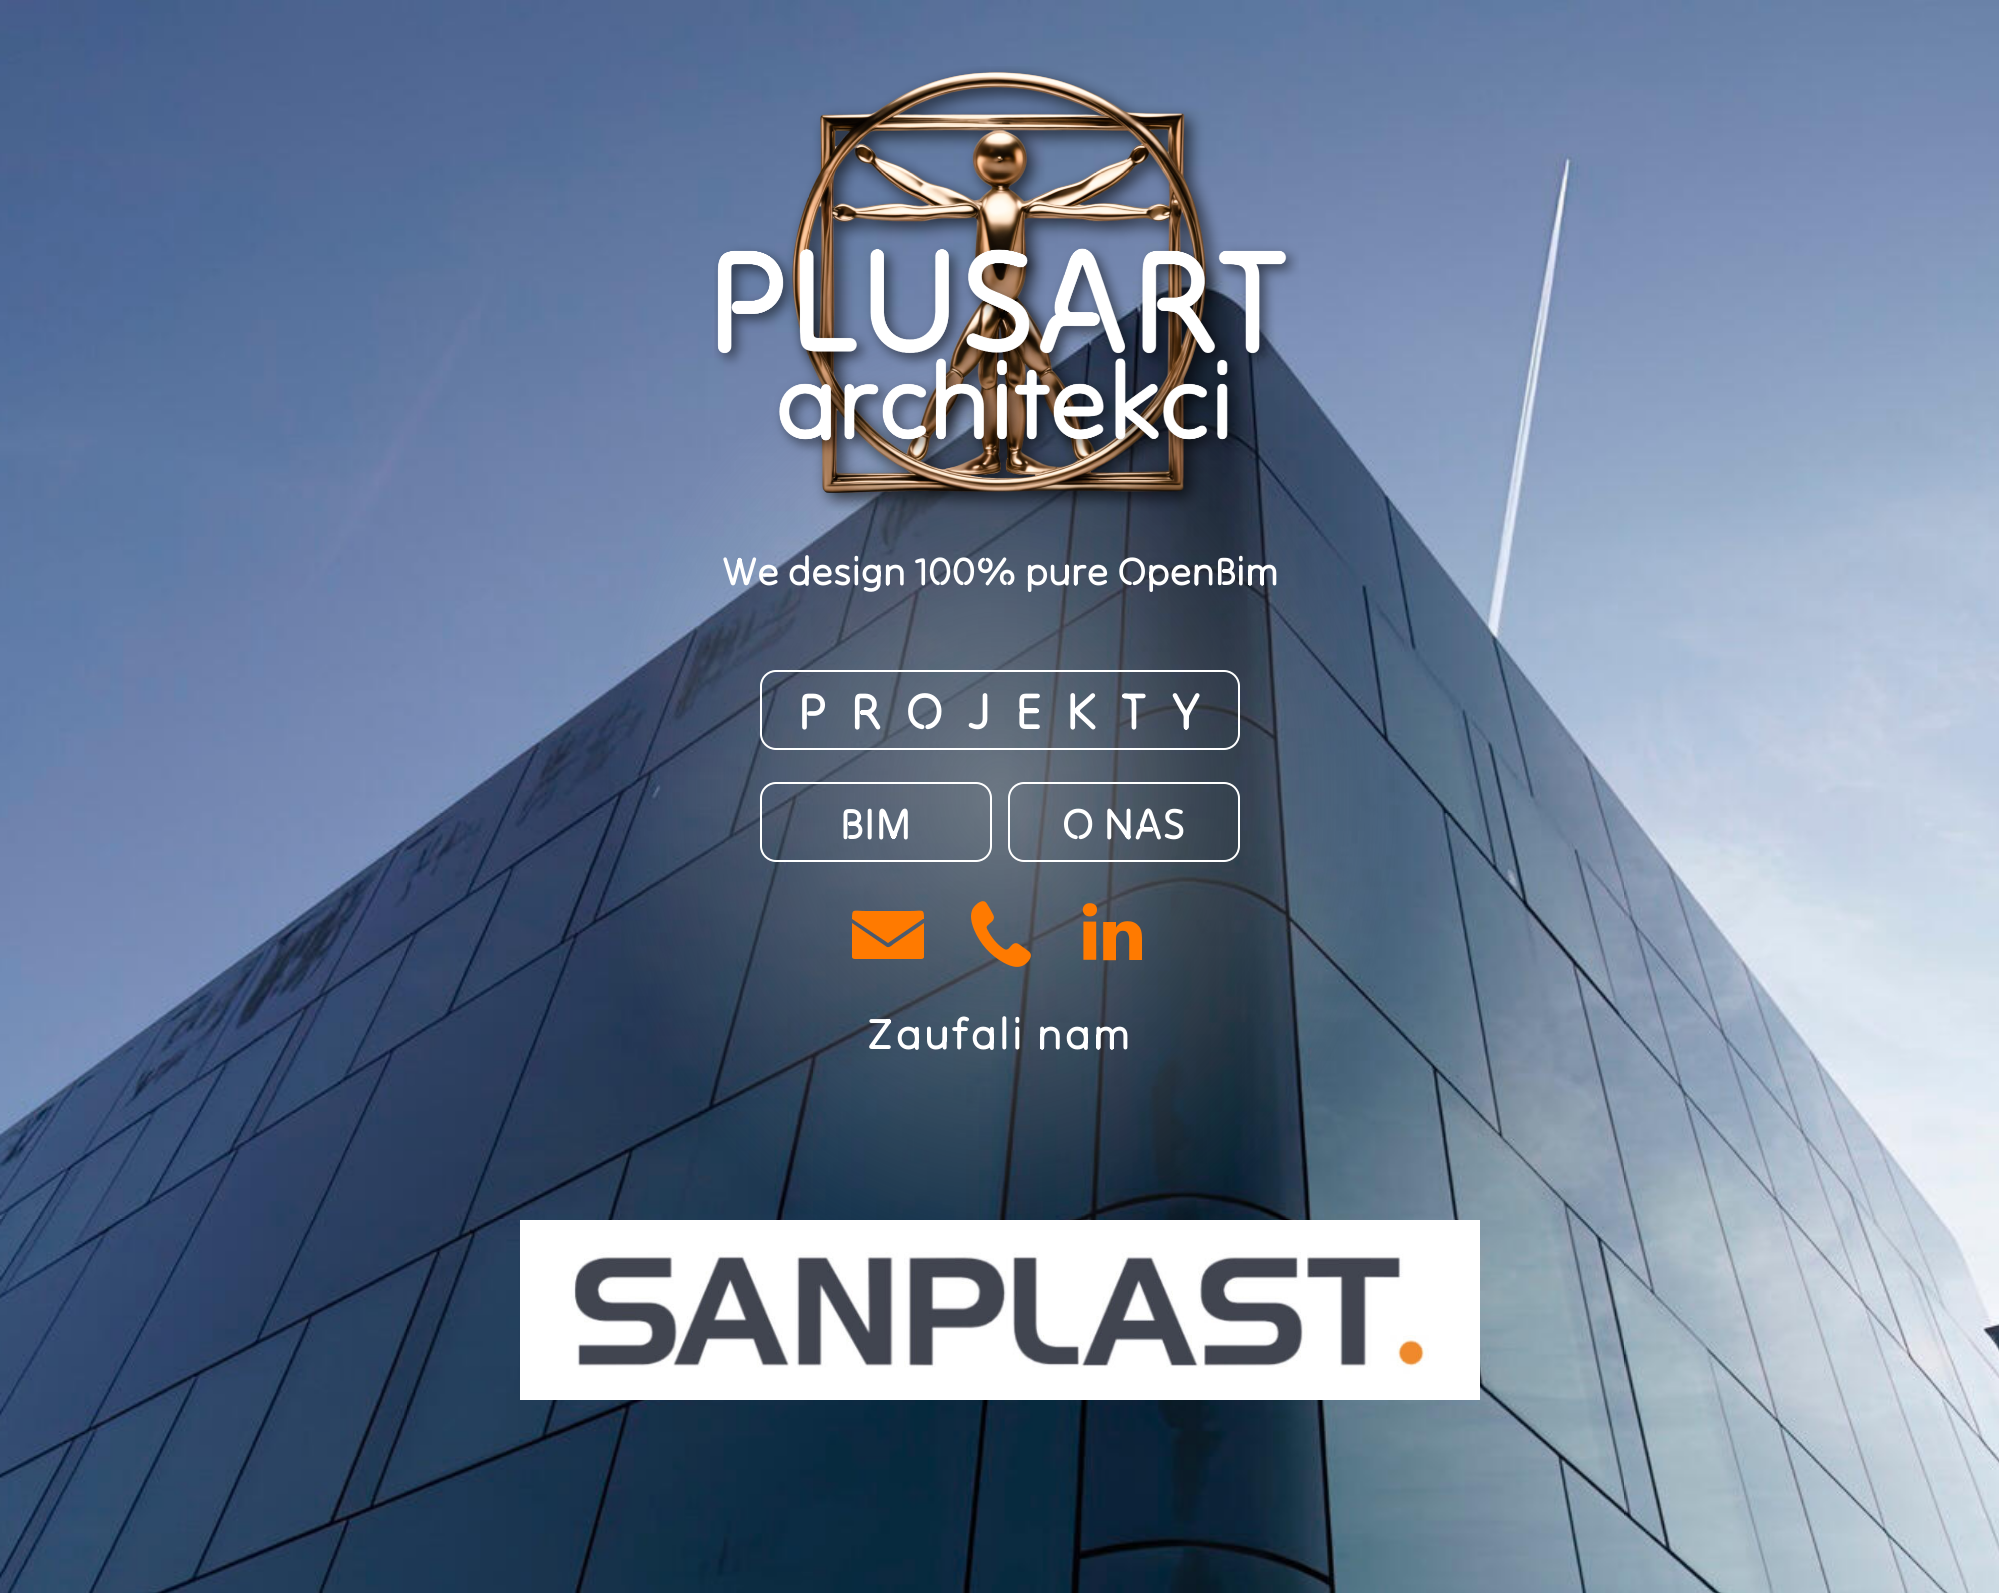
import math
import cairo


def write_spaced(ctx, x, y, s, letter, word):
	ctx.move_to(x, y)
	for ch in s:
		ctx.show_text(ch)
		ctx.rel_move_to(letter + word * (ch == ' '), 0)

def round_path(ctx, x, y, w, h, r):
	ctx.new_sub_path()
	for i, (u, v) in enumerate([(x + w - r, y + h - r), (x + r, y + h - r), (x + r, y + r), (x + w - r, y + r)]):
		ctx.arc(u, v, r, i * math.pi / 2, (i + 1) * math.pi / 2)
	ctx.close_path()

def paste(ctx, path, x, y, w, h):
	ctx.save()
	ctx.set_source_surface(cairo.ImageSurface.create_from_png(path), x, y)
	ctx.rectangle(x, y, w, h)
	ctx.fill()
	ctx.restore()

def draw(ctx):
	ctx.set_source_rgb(1, 1, 1)
	ctx.paint()
	paste(ctx, 'media/1.png', 0, 0, 1999, 1593)
	paste(ctx, 'media/2.png', 714, 66, 585, 445)
	ctx.select_font_face('Tilt Neon')
	ctx.set_font_size(40)
	ctx.set_source_rgb(1, 1, 1)
	ctx.move_to(722, 585)
	ctx.show_text('We design 100% pure OpenBim')
	round_path(ctx, 761, 671, 478, 78, 15)
	ctx.stroke()
	ctx.set_font_size(52)
	write_spaced(ctx, 798, 729, 'PROJEKTY', 24, 0)
	round_path(ctx, 761, 783, 230, 78, 15)
	ctx.stroke()
	ctx.set_font_size(44)
	ctx.move_to(840, 839)
	ctx.show_text('BIM')
	round_path(ctx, 1009, 783, 230, 78, 15)
	ctx.stroke()
	ctx.move_to(1062, 839)
	ctx.show_text('O NAS')
	ctx.set_source_rgb(1, 0.478, 0)
	ctx.new_path()
	ctx.move_to(923, 919)
	ctx.line_to(888, 943)
	ctx.line_to(852, 919)
	ctx.curve_to(852, 908, 853, 911, 866, 911)
	ctx.line_to(910, 911)
	ctx.curve_to(923, 911, 924, 908, 924, 919)
	ctx.close_path()
	ctx.move_to(887, 947)
	ctx.curve_to(890, 948, 893, 944, 895, 943)
	ctx.line_to(924, 923)
	ctx.line_to(924, 957)
	ctx.curve_to(924, 958, 923, 959, 921, 959)
	ctx.line_to(855, 959)
	ctx.curve_to(853, 959, 852, 958, 852, 957)
	ctx.line_to(852, 923)
	ctx.close_path()
	ctx.fill()
	paste(ctx, 'media/3.png', 971, 901, 60, 66)
	paste(ctx, 'media/4.png', 1082, 903, 60, 58)
	ctx.set_source_rgb(1, 1, 1)
	write_spaced(ctx, 867, 1049, 'Zaufali nam', 2.75, 0)
	paste(ctx, 'media/5.png', 520, 1220, 960, 180)


surface = cairo.ImageSurface(cairo.FORMAT_RGB24, 1999, 1593)
ctx = cairo.Context(surface)
options = cairo.FontOptions()
options.set_hint_metrics(cairo.HINT_METRICS_OFF)
options.set_hint_style(cairo.HINT_STYLE_NONE)
ctx.set_font_options(options)
ctx.set_miter_limit(4)
draw(ctx)
surface.write_to_png('image.png')
